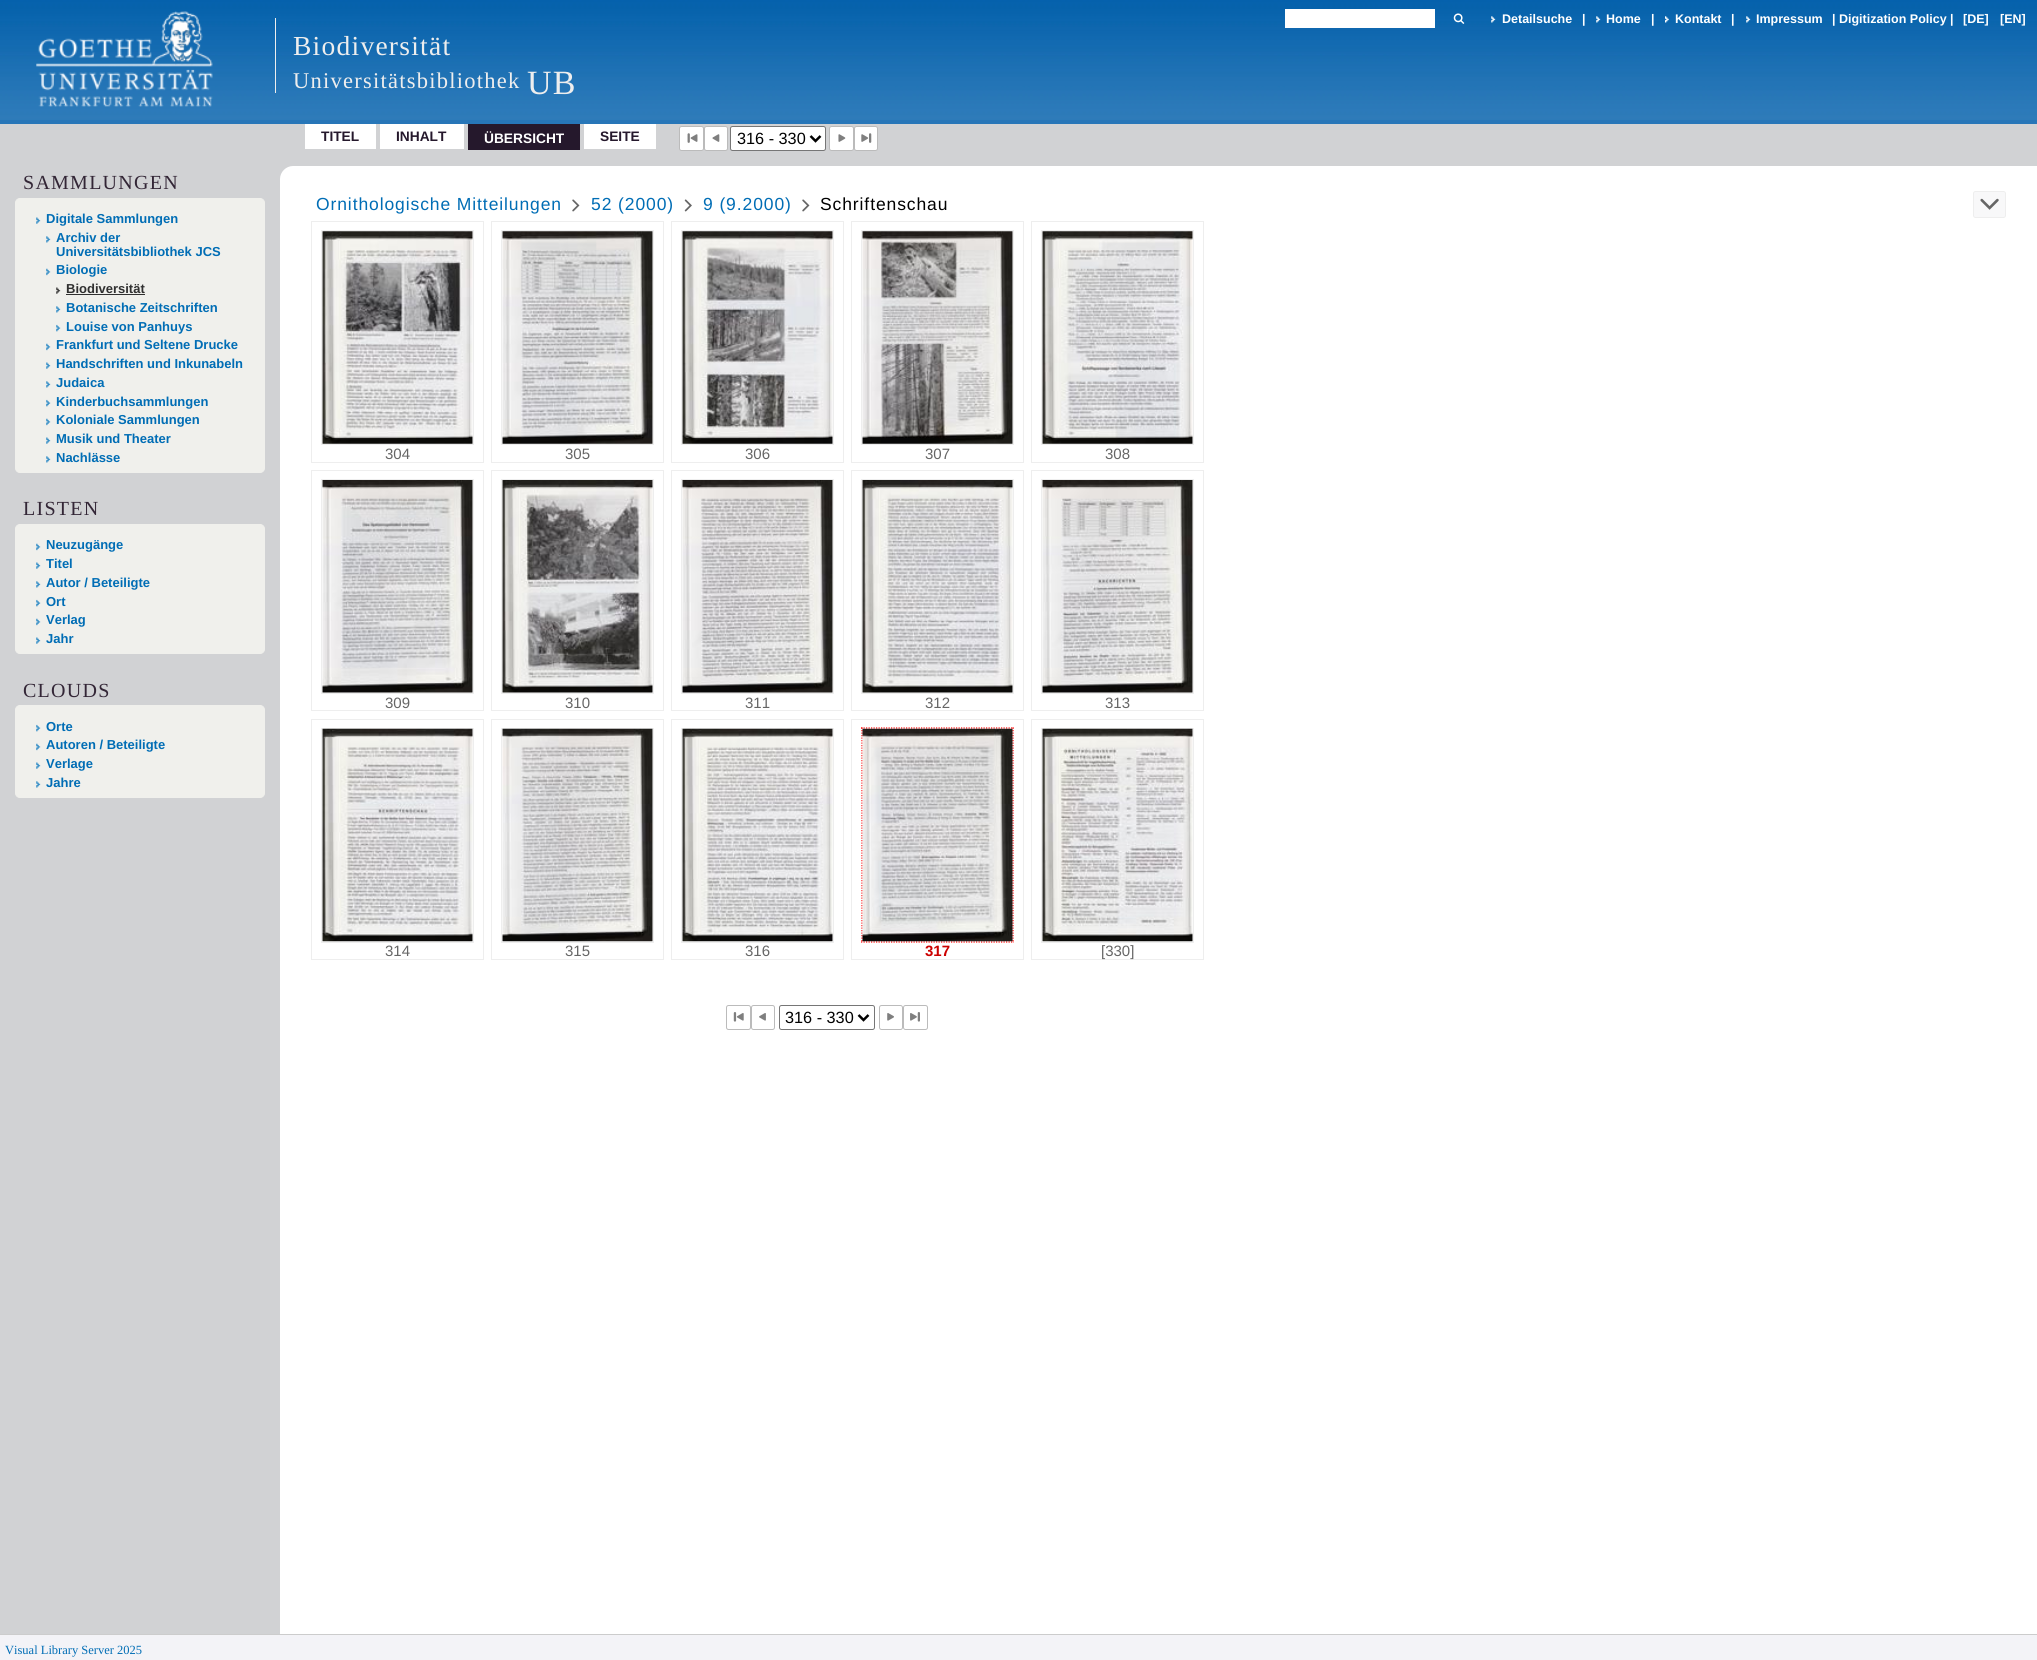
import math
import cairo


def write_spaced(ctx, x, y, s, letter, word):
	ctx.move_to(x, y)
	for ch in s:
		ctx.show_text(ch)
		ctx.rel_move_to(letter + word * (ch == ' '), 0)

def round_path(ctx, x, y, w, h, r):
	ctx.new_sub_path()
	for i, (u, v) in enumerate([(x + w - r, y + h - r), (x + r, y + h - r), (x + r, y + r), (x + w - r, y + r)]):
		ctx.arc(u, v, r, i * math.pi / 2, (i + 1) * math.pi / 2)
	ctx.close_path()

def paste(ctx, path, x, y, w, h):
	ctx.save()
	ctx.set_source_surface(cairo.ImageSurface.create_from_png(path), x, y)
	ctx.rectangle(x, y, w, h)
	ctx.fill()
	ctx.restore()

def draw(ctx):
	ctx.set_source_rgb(0.153, 0.463, 0.722)
	ctx.paint()
	paste(ctx, 'media/1.png', 0, 0, 2037, 120)
	paste(ctx, 'media/2.png', 36, 11, 177, 96)
	ctx.set_source_rgb(1, 1, 1)
	ctx.rectangle(1285, 9, 150, 19)
	ctx.fill()
	paste(ctx, 'media/3.png', 1453, 13, 12, 11)
	paste(ctx, 'media/4.png', 1491, 16, 5, 7)
	ctx.select_font_face('Liberation Sans', cairo.FONT_SLANT_NORMAL, cairo.FONT_WEIGHT_BOLD)
	ctx.set_font_size(12.5)
	ctx.move_to(1502, 23)
	ctx.show_text('Detailsuche')
	ctx.move_to(1582, 23)
	ctx.show_text('|')
	paste(ctx, 'media/5.png', 1596, 16, 5, 7)
	ctx.move_to(1606, 23)
	ctx.show_text('Home')
	ctx.move_to(1651, 23)
	ctx.show_text('|')
	paste(ctx, 'media/6.png', 1665, 16, 4, 7)
	ctx.move_to(1675, 23)
	ctx.show_text('Kontakt')
	ctx.move_to(1731, 23)
	ctx.show_text('|')
	paste(ctx, 'media/7.png', 1746, 16, 5, 7)
	for x, y, s in [
		(1756, 23, 'Impressum'),
		(1832, 23, '| Digitization Policy |'),
		(1963, 23, '[DE]'),
		(2000, 23, '[EN]'),
	]:
		ctx.move_to(x, y)
		ctx.show_text(s)
	ctx.set_source_rgb(0.933, 0.933, 0.933)
	ctx.rectangle(275, 18, 1, 75)
	ctx.fill()
	ctx.select_font_face('Liberation Serif')
	ctx.set_font_size(27.5)
	write_spaced(ctx, 293, 55, 'Biodiversität', 1.25, 0)
	ctx.set_font_size(22.5)
	write_spaced(ctx, 293, 88, 'Universitätsbibliothek', 1.25, 0)
	ctx.set_font_size(34)
	write_spaced(ctx, 527, 94, 'UB', 1.25, 0)
	ctx.set_source_rgb(0.82, 0.824, 0.831)
	ctx.rectangle(0, 124, 2037, 42)
	ctx.fill()
	ctx.set_source_rgb(1, 1, 1)
	ctx.rectangle(305, 124, 71, 25)
	ctx.fill()
	ctx.select_font_face('Liberation Sans', cairo.FONT_SLANT_NORMAL, cairo.FONT_WEIGHT_BOLD)
	ctx.set_font_size(13.75)
	ctx.set_source_rgb(0.145, 0.094, 0.173)
	ctx.move_to(321, 141)
	ctx.show_text('TITEL')
	ctx.set_source_rgb(1, 1, 1)
	ctx.rectangle(380, 124, 84, 25)
	ctx.fill()
	ctx.set_source_rgb(0.145, 0.094, 0.173)
	ctx.move_to(396, 141)
	ctx.show_text('INHALT')
	ctx.rectangle(468, 124, 112, 26)
	ctx.fill()
	ctx.set_source_rgb(1, 1, 1)
	ctx.move_to(484, 143)
	ctx.show_text('ÜBERSICHT')
	ctx.rectangle(584, 124, 72, 25)
	ctx.fill()
	ctx.set_source_rgb(0.145, 0.094, 0.173)
	ctx.move_to(600, 141)
	ctx.show_text('SEITE')
	ctx.set_source_rgb(1, 1, 1)
	round_path(ctx, 679.5, 126.5, 24, 24, 2)
	ctx.fill_preserve()
	ctx.set_source_rgb(0.733, 0.733, 0.733)
	ctx.set_line_width(1)
	ctx.stroke()
	paste(ctx, 'media/8.png', 687, 133, 11, 10)
	ctx.set_source_rgb(1, 1, 1)
	round_path(ctx, 704.5, 126.5, 23, 24, 2)
	ctx.fill_preserve()
	ctx.set_source_rgb(0.733, 0.733, 0.733)
	ctx.stroke()
	paste(ctx, 'media/9.png', 712, 134, 8, 8)
	ctx.set_source_rgb(1, 1, 1)
	round_path(ctx, 730.5, 126.5, 95, 24, 2)
	ctx.fill_preserve()
	ctx.set_source_rgb(0.463, 0.463, 0.463)
	ctx.stroke()
	ctx.new_path()
	ctx.move_to(810.5, 136)
	ctx.line_to(815.5, 141)
	ctx.line_to(820.5, 136)
	ctx.set_source_rgb(0, 0, 0)
	ctx.set_line_width(2.5)
	ctx.stroke()
	ctx.select_font_face('Liberation Sans')
	ctx.set_font_size(16.25)
	ctx.move_to(737, 144)
	ctx.show_text('316 - 330')
	ctx.set_source_rgb(1, 1, 1)
	round_path(ctx, 829.5, 126.5, 24, 24, 2)
	ctx.fill_preserve()
	ctx.set_source_rgb(0.733, 0.733, 0.733)
	ctx.set_line_width(1)
	ctx.stroke()
	paste(ctx, 'media/10.png', 838, 134, 8, 8)
	ctx.set_source_rgb(1, 1, 1)
	round_path(ctx, 854.5, 126.5, 23, 24, 2)
	ctx.fill_preserve()
	ctx.set_source_rgb(0.733, 0.733, 0.733)
	ctx.stroke()
	paste(ctx, 'media/11.png', 861, 133, 11, 10)
	ctx.set_source_rgb(0.82, 0.824, 0.831)
	ctx.rectangle(0, 166, 293, 1468)
	ctx.fill()
	ctx.select_font_face('Liberation Serif')
	ctx.set_font_size(20)
	ctx.set_source_rgb(0.2, 0.149, 0.212)
	write_spaced(ctx, 23, 189, 'SAMMLUNGEN', 1.25, 0)
	ctx.set_source_rgb(0.941, 0.941, 0.925)
	round_path(ctx, 15.5, 198.5, 249, 274, 4.5)
	ctx.fill_preserve()
	ctx.stroke()
	paste(ctx, 'media/12.png', 36, 217, 5, 7)
	ctx.select_font_face('Liberation Sans', cairo.FONT_SLANT_NORMAL, cairo.FONT_WEIGHT_BOLD)
	ctx.set_font_size(13)
	ctx.set_source_rgb(0, 0.427, 0.71)
	ctx.move_to(46, 223)
	ctx.show_text('Digitale Sammlungen')
	paste(ctx, 'media/13.png', 46, 236, 5, 7)
	ctx.move_to(56, 242)
	ctx.show_text('Archiv der')
	ctx.move_to(56, 256)
	ctx.show_text('Universitätsbibliothek JCS')
	paste(ctx, 'media/14.png', 46, 268, 5, 8)
	ctx.move_to(56, 274)
	ctx.show_text('Biologie')
	paste(ctx, 'media/15.png', 56, 287, 5, 7)
	ctx.set_source_rgb(0.188, 0.188, 0.188)
	ctx.move_to(66, 293)
	ctx.show_text('Biodiversität')
	ctx.rectangle(66, 294, 79, 1)
	ctx.fill()
	paste(ctx, 'media/13.png', 56, 306, 5, 7)
	ctx.set_source_rgb(0, 0.427, 0.71)
	ctx.move_to(66, 312)
	ctx.show_text('Botanische Zeitschriften')
	paste(ctx, 'media/16.png', 56, 324, 5, 8)
	ctx.move_to(66, 331)
	ctx.show_text('Louise von Panhuys')
	paste(ctx, 'media/14.png', 46, 343, 5, 8)
	ctx.move_to(56, 349)
	ctx.show_text('Frankfurt und Seltene Drucke')
	paste(ctx, 'media/12.png', 46, 362, 5, 7)
	ctx.move_to(56, 368)
	ctx.show_text('Handschriften und Inkunabeln')
	paste(ctx, 'media/13.png', 46, 381, 5, 7)
	ctx.move_to(56, 387)
	ctx.show_text('Judaica')
	paste(ctx, 'media/16.png', 46, 399, 5, 8)
	ctx.move_to(56, 406)
	ctx.show_text('Kinderbuchsammlungen')
	paste(ctx, 'media/14.png', 46, 418, 5, 8)
	ctx.move_to(56, 424)
	ctx.show_text('Koloniale Sammlungen')
	paste(ctx, 'media/12.png', 46, 437, 5, 7)
	ctx.move_to(56, 443)
	ctx.show_text('Musik und Theater')
	paste(ctx, 'media/13.png', 46, 456, 5, 7)
	ctx.move_to(56, 462)
	ctx.show_text('Nachlässe')
	ctx.select_font_face('Liberation Serif')
	ctx.set_font_size(20)
	ctx.set_source_rgb(0.2, 0.149, 0.212)
	write_spaced(ctx, 23, 515, 'LISTEN', 1.25, 0)
	ctx.set_source_rgb(0.941, 0.941, 0.925)
	round_path(ctx, 15.5, 524.5, 249, 129, 4.5)
	ctx.fill_preserve()
	ctx.stroke()
	paste(ctx, 'media/14.png', 36, 543, 5, 8)
	ctx.select_font_face('Liberation Sans', cairo.FONT_SLANT_NORMAL, cairo.FONT_WEIGHT_BOLD)
	ctx.set_font_size(13)
	ctx.set_source_rgb(0, 0.427, 0.71)
	ctx.move_to(46, 549)
	ctx.show_text('Neuzugänge')
	paste(ctx, 'media/12.png', 36, 562, 5, 7)
	ctx.move_to(46, 568)
	ctx.show_text('Titel')
	paste(ctx, 'media/13.png', 36, 581, 5, 7)
	ctx.move_to(46, 587)
	ctx.show_text('Autor / Beteiligte')
	paste(ctx, 'media/16.png', 36, 599, 5, 8)
	ctx.move_to(46, 606)
	ctx.show_text('Ort')
	paste(ctx, 'media/14.png', 36, 618, 5, 8)
	ctx.move_to(46, 624)
	ctx.show_text('Verlag')
	paste(ctx, 'media/12.png', 36, 637, 5, 7)
	ctx.move_to(46, 643)
	ctx.show_text('Jahr')
	ctx.select_font_face('Liberation Serif')
	ctx.set_font_size(20)
	ctx.set_source_rgb(0.2, 0.149, 0.212)
	write_spaced(ctx, 23, 697, 'CLOUDS', 1.25, 0)
	ctx.set_source_rgb(0.941, 0.941, 0.925)
	round_path(ctx, 15.5, 705.5, 249, 92, 4.5)
	ctx.fill_preserve()
	ctx.stroke()
	paste(ctx, 'media/16.png', 36, 724, 5, 8)
	ctx.select_font_face('Liberation Sans', cairo.FONT_SLANT_NORMAL, cairo.FONT_WEIGHT_BOLD)
	ctx.set_font_size(13)
	ctx.set_source_rgb(0, 0.427, 0.71)
	ctx.move_to(46, 731)
	ctx.show_text('Orte')
	paste(ctx, 'media/14.png', 36, 743, 5, 8)
	ctx.move_to(46, 749)
	ctx.show_text('Autoren / Beteiligte')
	paste(ctx, 'media/12.png', 36, 762, 5, 7)
	ctx.move_to(46, 768)
	ctx.show_text('Verlage')
	paste(ctx, 'media/17.png', 36, 781, 5, 7)
	ctx.move_to(46, 787)
	ctx.show_text('Jahre')
	ctx.set_source_rgb(1, 1, 1)
	ctx.new_path()
	ctx.move_to(293, 166)
	ctx.line_to(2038, 166)
	ctx.line_to(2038, 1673)
	ctx.line_to(280, 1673)
	ctx.line_to(280, 179)
	ctx.curve_to(280, 172, 286, 166, 293, 166)
	ctx.close_path()
	ctx.fill()
	ctx.select_font_face('Liberation Sans')
	ctx.set_font_size(17.5)
	ctx.set_source_rgb(0, 0.427, 0.71)
	write_spaced(ctx, 316, 210, 'Ornithologische Mitteilungen', 0.9, 0)
	paste(ctx, 'media/18.png', 572, 199, 8, 13)
	write_spaced(ctx, 591, 210, '52 (2000)', 0.9, 0)
	paste(ctx, 'media/19.png', 684, 199, 8, 13)
	write_spaced(ctx, 703, 210, '9 (9.2000)', 0.9, 0)
	paste(ctx, 'media/18.png', 802, 199, 8, 13)
	ctx.set_source_rgb(0, 0, 0)
	write_spaced(ctx, 820, 210, 'Schriftenschau', 0.9, 0)
	ctx.set_source_rgb(0.969, 0.969, 0.973)
	round_path(ctx, 1973.5, 191.5, 32, 26, 2)
	ctx.fill_preserve()
	ctx.set_source_rgb(0.933, 0.933, 0.933)
	ctx.stroke()
	paste(ctx, 'media/20.png', 1980, 198, 19, 12)
	ctx.rectangle(311.5, 221.5, 172, 241)
	ctx.stroke()
	ctx.rectangle(321.5, 230.5, 152, 214)
	ctx.stroke()
	paste(ctx, 'media/21.png', 322, 231, 151, 213)
	ctx.set_font_size(15)
	ctx.set_source_rgb(0.4, 0.4, 0.4)
	ctx.move_to(385, 459)
	ctx.show_text('304')
	ctx.rectangle(491.5, 221.5, 172, 241)
	ctx.set_source_rgb(0.933, 0.933, 0.933)
	ctx.stroke()
	ctx.rectangle(501.5, 230.5, 152, 214)
	ctx.stroke()
	paste(ctx, 'media/22.png', 502, 231, 151, 213)
	ctx.set_source_rgb(0.4, 0.4, 0.4)
	ctx.move_to(565, 459)
	ctx.show_text('305')
	ctx.rectangle(671.5, 221.5, 172, 241)
	ctx.set_source_rgb(0.933, 0.933, 0.933)
	ctx.stroke()
	ctx.rectangle(681.5, 230.5, 152, 214)
	ctx.stroke()
	paste(ctx, 'media/23.png', 682, 231, 151, 213)
	ctx.set_source_rgb(0.4, 0.4, 0.4)
	ctx.move_to(745, 459)
	ctx.show_text('306')
	ctx.rectangle(851.5, 221.5, 172, 241)
	ctx.set_source_rgb(0.933, 0.933, 0.933)
	ctx.stroke()
	ctx.rectangle(861.5, 230.5, 152, 214)
	ctx.stroke()
	paste(ctx, 'media/24.png', 862, 231, 151, 213)
	ctx.set_source_rgb(0.4, 0.4, 0.4)
	ctx.move_to(925, 459)
	ctx.show_text('307')
	ctx.rectangle(1031.5, 221.5, 172, 241)
	ctx.set_source_rgb(0.933, 0.933, 0.933)
	ctx.stroke()
	ctx.rectangle(1041.5, 230.5, 152, 214)
	ctx.stroke()
	paste(ctx, 'media/25.png', 1042, 231, 151, 213)
	ctx.set_source_rgb(0.4, 0.4, 0.4)
	ctx.move_to(1105, 459)
	ctx.show_text('308')
	ctx.rectangle(311.5, 470.5, 172, 240)
	ctx.set_source_rgb(0.933, 0.933, 0.933)
	ctx.stroke()
	ctx.rectangle(321.5, 479.5, 152, 214)
	ctx.stroke()
	paste(ctx, 'media/26.png', 322, 480, 151, 213)
	ctx.set_source_rgb(0.4, 0.4, 0.4)
	ctx.move_to(385, 708)
	ctx.show_text('309')
	ctx.rectangle(491.5, 470.5, 172, 240)
	ctx.set_source_rgb(0.933, 0.933, 0.933)
	ctx.stroke()
	ctx.rectangle(501.5, 479.5, 152, 214)
	ctx.stroke()
	paste(ctx, 'media/27.png', 502, 480, 151, 213)
	ctx.set_source_rgb(0.4, 0.4, 0.4)
	ctx.move_to(565, 708)
	ctx.show_text('310')
	ctx.rectangle(671.5, 470.5, 172, 240)
	ctx.set_source_rgb(0.933, 0.933, 0.933)
	ctx.stroke()
	ctx.rectangle(681.5, 479.5, 152, 214)
	ctx.stroke()
	paste(ctx, 'media/28.png', 682, 480, 151, 213)
	ctx.set_source_rgb(0.4, 0.4, 0.4)
	ctx.move_to(745, 708)
	ctx.show_text('311')
	ctx.rectangle(851.5, 470.5, 172, 240)
	ctx.set_source_rgb(0.933, 0.933, 0.933)
	ctx.stroke()
	ctx.rectangle(861.5, 479.5, 152, 214)
	ctx.stroke()
	paste(ctx, 'media/29.png', 862, 480, 151, 213)
	ctx.set_source_rgb(0.4, 0.4, 0.4)
	ctx.move_to(925, 708)
	ctx.show_text('312')
	ctx.rectangle(1031.5, 470.5, 172, 240)
	ctx.set_source_rgb(0.933, 0.933, 0.933)
	ctx.stroke()
	ctx.rectangle(1041.5, 479.5, 152, 214)
	ctx.stroke()
	paste(ctx, 'media/30.png', 1042, 480, 151, 213)
	ctx.set_source_rgb(0.4, 0.4, 0.4)
	ctx.move_to(1105, 708)
	ctx.show_text('313')
	ctx.rectangle(311.5, 719.5, 172, 240)
	ctx.set_source_rgb(0.933, 0.933, 0.933)
	ctx.stroke()
	ctx.rectangle(321.5, 728.5, 152, 214)
	ctx.stroke()
	paste(ctx, 'media/31.png', 322, 728, 151, 214)
	ctx.set_source_rgb(0.4, 0.4, 0.4)
	ctx.move_to(385, 956)
	ctx.show_text('314')
	ctx.rectangle(491.5, 719.5, 172, 240)
	ctx.set_source_rgb(0.933, 0.933, 0.933)
	ctx.stroke()
	ctx.rectangle(501.5, 728.5, 152, 214)
	ctx.stroke()
	paste(ctx, 'media/32.png', 502, 728, 151, 214)
	ctx.set_source_rgb(0.4, 0.4, 0.4)
	ctx.move_to(565, 956)
	ctx.show_text('315')
	ctx.rectangle(671.5, 719.5, 172, 240)
	ctx.set_source_rgb(0.933, 0.933, 0.933)
	ctx.stroke()
	ctx.rectangle(681.5, 728.5, 152, 214)
	ctx.stroke()
	paste(ctx, 'media/33.png', 682, 728, 151, 214)
	ctx.set_source_rgb(0.4, 0.4, 0.4)
	ctx.move_to(745, 956)
	ctx.show_text('316')
	ctx.rectangle(851.5, 719.5, 172, 240)
	ctx.set_source_rgb(0.933, 0.933, 0.933)
	ctx.stroke()
	ctx.new_path()
	ctx.move_to(861, 728)
	ctx.line_to(1014, 728)
	ctx.set_source_rgb(1, 0, 0)
	ctx.set_line_width(1.2)
	ctx.set_dash([1.25, 1.25])
	ctx.stroke()
	ctx.new_path()
	ctx.move_to(1013, 727.5)
	ctx.line_to(1013, 942.5)
	ctx.stroke()
	ctx.new_path()
	ctx.move_to(861, 942)
	ctx.line_to(1014, 942)
	ctx.stroke()
	ctx.new_path()
	ctx.move_to(862, 727.5)
	ctx.line_to(862, 942.5)
	ctx.stroke()
	paste(ctx, 'media/34.png', 862, 728, 151, 214)
	ctx.select_font_face('Liberation Sans', cairo.FONT_SLANT_NORMAL, cairo.FONT_WEIGHT_BOLD)
	ctx.set_source_rgb(0.8, 0, 0)
	ctx.move_to(925, 956)
	ctx.show_text('317')
	ctx.rectangle(1031.5, 719.5, 172, 240)
	ctx.set_source_rgb(0.933, 0.933, 0.933)
	ctx.set_line_width(1)
	ctx.set_dash([])
	ctx.stroke()
	ctx.rectangle(1041.5, 728.5, 152, 214)
	ctx.stroke()
	paste(ctx, 'media/35.png', 1042, 728, 151, 214)
	ctx.select_font_face('Liberation Sans')
	ctx.set_source_rgb(0.4, 0.4, 0.4)
	ctx.move_to(1101, 956)
	ctx.show_text('[330]')
	round_path(ctx, 726.5, 1005.5, 24, 24, 2)
	ctx.set_source_rgb(0.733, 0.733, 0.733)
	ctx.stroke()
	paste(ctx, 'media/36.png', 733, 1012, 11, 10)
	round_path(ctx, 751.5, 1005.5, 23, 24, 2)
	ctx.stroke()
	paste(ctx, 'media/37.png', 759, 1013, 7, 8)
	round_path(ctx, 779.5, 1005.5, 95, 24, 2)
	ctx.set_source_rgb(0.463, 0.463, 0.463)
	ctx.stroke()
	ctx.new_path()
	ctx.move_to(858.5, 1015)
	ctx.line_to(863.5, 1020)
	ctx.line_to(868.5, 1015)
	ctx.set_source_rgb(0, 0, 0)
	ctx.set_line_width(2.5)
	ctx.stroke()
	ctx.set_font_size(16.25)
	ctx.move_to(785, 1023)
	ctx.show_text('316 - 330')
	round_path(ctx, 879.5, 1005.5, 23, 24, 2)
	ctx.set_source_rgb(0.733, 0.733, 0.733)
	ctx.set_line_width(1)
	ctx.stroke()
	paste(ctx, 'media/38.png', 887, 1013, 7, 8)
	round_path(ctx, 903.5, 1005.5, 24, 24, 2)
	ctx.stroke()
	paste(ctx, 'media/39.png', 910, 1012, 10, 10)
	ctx.set_source_rgb(0.953, 0.953, 0.965)
	ctx.rectangle(0, 1635, 2037, 25)
	ctx.fill()
	ctx.set_source_rgb(0.8, 0.8, 0.8)
	ctx.rectangle(0, 1634, 2037, 1)
	ctx.fill()
	ctx.select_font_face('Liberation Serif')
	ctx.set_font_size(12.5)
	ctx.set_source_rgb(0, 0.427, 0.71)
	ctx.move_to(5, 1654)
	ctx.show_text('Visual Library Server 2025')


surface = cairo.ImageSurface(cairo.FORMAT_RGB24, 2037, 1660)
ctx = cairo.Context(surface)
options = cairo.FontOptions()
options.set_hint_metrics(cairo.HINT_METRICS_OFF)
options.set_hint_style(cairo.HINT_STYLE_NONE)
ctx.set_font_options(options)
ctx.set_miter_limit(4)
draw(ctx)
surface.write_to_png('image.png')
